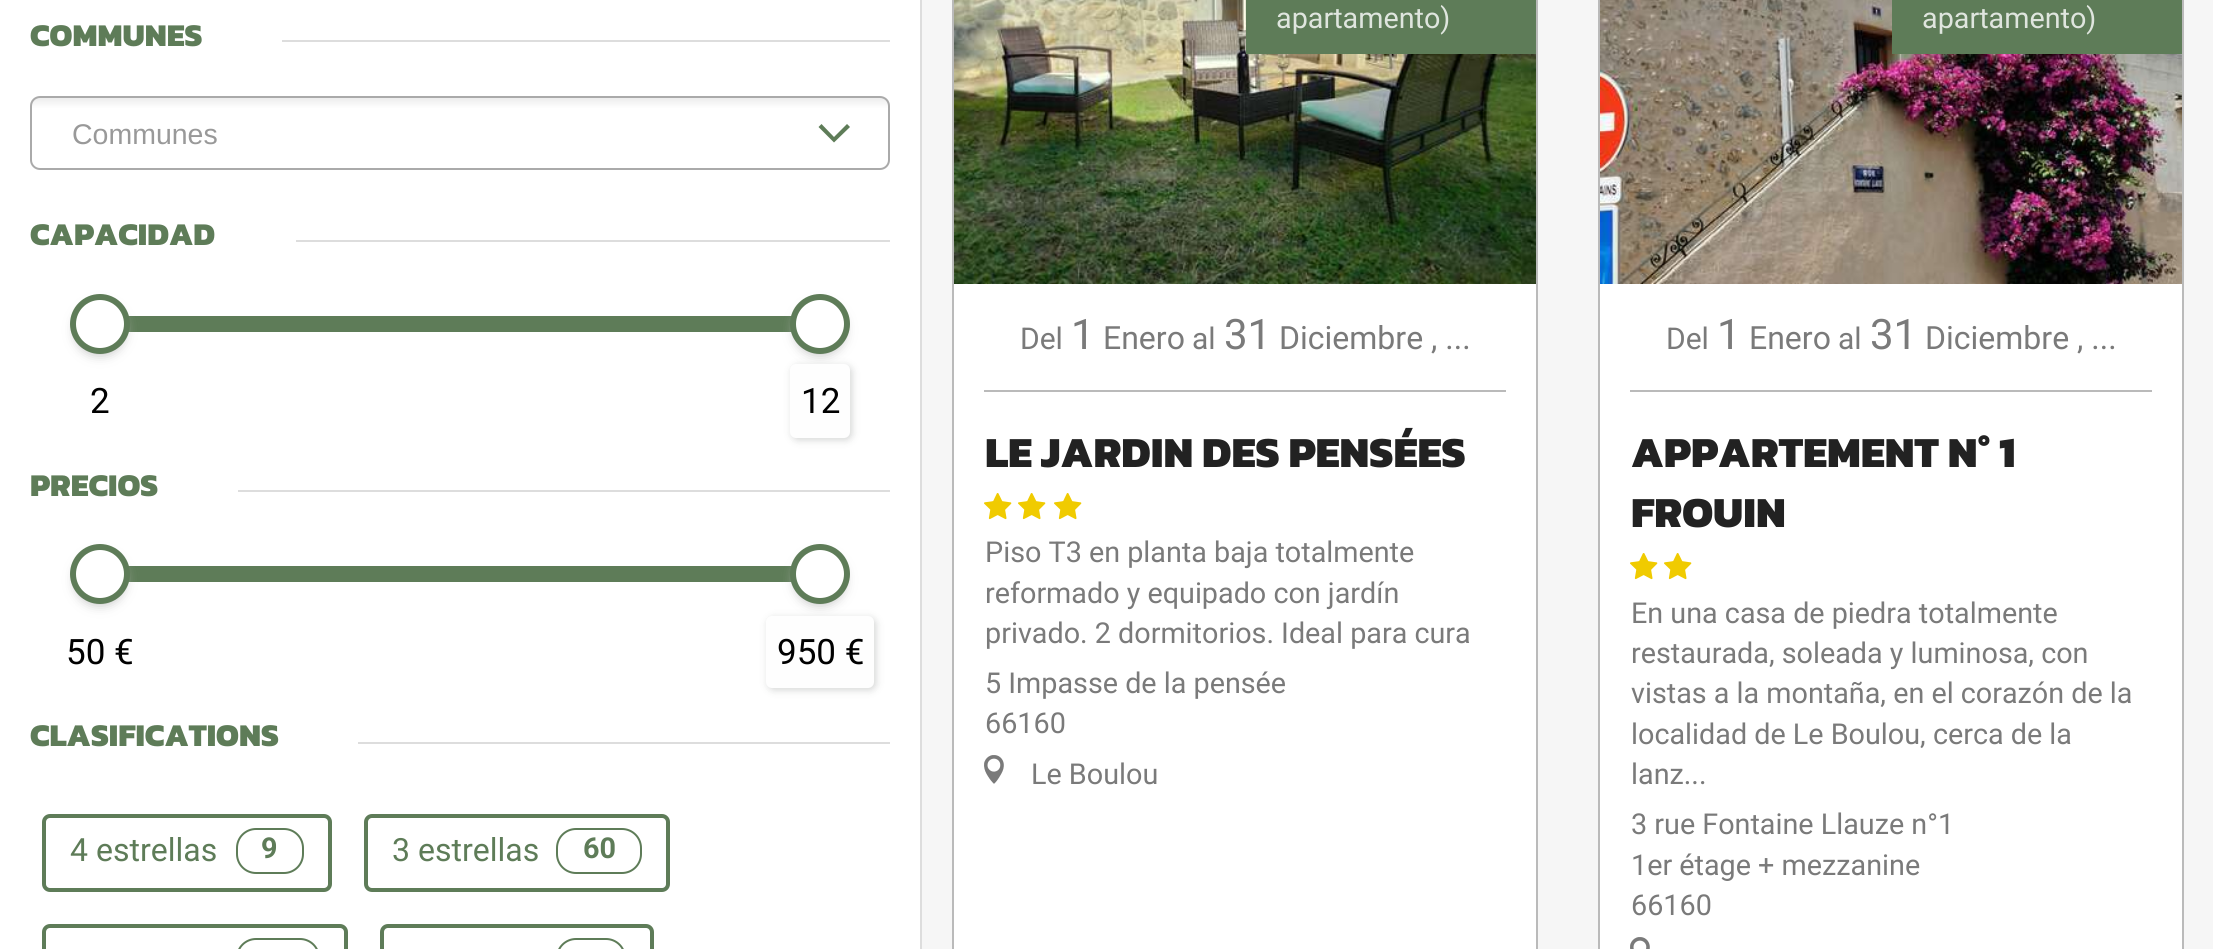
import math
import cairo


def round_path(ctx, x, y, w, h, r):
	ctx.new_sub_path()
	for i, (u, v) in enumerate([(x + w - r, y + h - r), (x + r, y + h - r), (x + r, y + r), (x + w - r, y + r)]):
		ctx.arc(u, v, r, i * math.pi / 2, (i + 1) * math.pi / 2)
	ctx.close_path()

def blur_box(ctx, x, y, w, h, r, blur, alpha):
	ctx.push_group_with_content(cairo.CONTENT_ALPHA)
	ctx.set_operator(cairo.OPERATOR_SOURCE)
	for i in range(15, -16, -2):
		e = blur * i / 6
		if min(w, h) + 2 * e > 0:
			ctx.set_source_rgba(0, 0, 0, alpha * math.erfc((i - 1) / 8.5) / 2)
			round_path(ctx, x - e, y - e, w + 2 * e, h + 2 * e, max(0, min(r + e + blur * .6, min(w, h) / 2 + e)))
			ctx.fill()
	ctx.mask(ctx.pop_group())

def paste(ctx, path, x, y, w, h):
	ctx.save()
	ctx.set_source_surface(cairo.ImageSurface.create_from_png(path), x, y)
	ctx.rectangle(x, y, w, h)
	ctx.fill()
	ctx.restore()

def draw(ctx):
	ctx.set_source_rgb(1, 1, 1)
	ctx.paint()
	ctx.set_source_rgb(0.867, 0.867, 0.867)
	ctx.rectangle(920, 0, 2, 949)
	ctx.fill()
	ctx.select_font_face('Kanit ExtraBold')
	ctx.set_font_size(32)
	ctx.set_source_rgb(0.369, 0.486, 0.345)
	ctx.move_to(30, 46)
	ctx.show_text('COMMUNES')
	ctx.set_source_rgb(0.867, 0.867, 0.867)
	ctx.rectangle(282, 40, 608, 2)
	ctx.fill()
	ctx.save()
	round_path(ctx, 30, 96, 860, 74, 10)
	ctx.clip()
	gradient = cairo.LinearGradient(460, 98, 460, 168)
	gradient.add_color_stop_rgba(0.01, 0.933, 0.933, 0.933, 1)
	gradient.add_color_stop_rgba(0.15, 1, 1, 1, 1)
	ctx.set_source(gradient)
	ctx.rectangle(30, 98, 860, 70)
	ctx.fill()
	ctx.restore()
	round_path(ctx, 31, 97, 858, 72, 9)
	ctx.set_source_rgb(0.667, 0.667, 0.667)
	ctx.stroke()
	ctx.select_font_face('Liberation Sans')
	ctx.set_font_size(28.5)
	ctx.set_source_rgb(0.6, 0.6, 0.6)
	ctx.move_to(72, 144)
	ctx.show_text('Communes')
	ctx.set_source_rgb(0.369, 0.486, 0.345)
	ctx.new_path()
	ctx.move_to(847, 124)
	ctx.line_to(850, 127)
	ctx.line_to(834, 142.5)
	ctx.line_to(818.5, 127)
	ctx.line_to(821.5, 124)
	ctx.line_to(834, 137)
	ctx.close_path()
	ctx.fill()
	ctx.select_font_face('Kanit ExtraBold')
	ctx.set_font_size(32)
	ctx.move_to(30, 245)
	ctx.show_text('CAPACIDAD')
	ctx.set_source_rgb(0.867, 0.867, 0.867)
	ctx.rectangle(296, 240, 594, 2)
	ctx.fill()
	ctx.set_source_rgb(0.369, 0.486, 0.345)
	ctx.rectangle(128, 316, 664, 16)
	ctx.fill()
	ctx.set_source_rgb(0.733, 0.733, 0.733)
	blur_box(ctx, 76, 306, 48, 48, 24, 6, 1)
	ctx.set_source_rgb(1, 1, 1)
	ctx.arc(100, 324, 27, 0, 2 * math.pi)
	ctx.fill_preserve()
	ctx.set_source_rgb(0.369, 0.486, 0.345)
	ctx.set_line_width(6)
	ctx.stroke()
	ctx.select_font_face('Roboto')
	ctx.set_font_size(35)
	ctx.set_source_rgb(0, 0, 0)
	ctx.move_to(90, 413)
	ctx.show_text('2')
	ctx.set_source_rgb(0.733, 0.733, 0.733)
	blur_box(ctx, 796, 306, 48, 48, 24, 6, 1)
	ctx.set_source_rgb(1, 1, 1)
	ctx.arc(820, 324, 27, 0, 2 * math.pi)
	ctx.fill_preserve()
	ctx.set_source_rgb(0.369, 0.486, 0.345)
	ctx.stroke()
	ctx.set_source_rgb(0.145, 0.173, 0.157)
	blur_box(ctx, 792, 366, 60, 74, 6, 4, 0.2)
	ctx.set_source_rgb(0.996, 0.996, 0.996)
	round_path(ctx, 790, 364, 60, 74, 6)
	ctx.fill()
	ctx.set_source_rgb(0, 0, 0)
	ctx.move_to(801, 413)
	ctx.show_text('12')
	ctx.select_font_face('Kanit ExtraBold')
	ctx.set_font_size(32)
	ctx.set_source_rgb(0.369, 0.486, 0.345)
	ctx.move_to(30, 496)
	ctx.show_text('PRECIOS')
	ctx.set_source_rgb(0.867, 0.867, 0.867)
	ctx.rectangle(238, 490, 652, 2)
	ctx.fill()
	ctx.set_source_rgb(0.369, 0.486, 0.345)
	ctx.rectangle(128, 566, 664, 16)
	ctx.fill()
	ctx.set_source_rgb(0.733, 0.733, 0.733)
	blur_box(ctx, 76, 556, 48, 48, 24, 6, 1)
	ctx.set_source_rgb(1, 1, 1)
	ctx.arc(100, 574, 27, 0, 2 * math.pi)
	ctx.fill_preserve()
	ctx.set_source_rgb(0.369, 0.486, 0.345)
	ctx.stroke()
	ctx.select_font_face('Roboto')
	ctx.set_font_size(35)
	ctx.set_source_rgb(0, 0, 0)
	ctx.move_to(66, 664)
	ctx.show_text('50 €')
	ctx.set_source_rgb(0.733, 0.733, 0.733)
	blur_box(ctx, 796, 556, 48, 48, 24, 6, 1)
	ctx.set_source_rgb(1, 1, 1)
	ctx.arc(820, 574, 27, 0, 2 * math.pi)
	ctx.fill_preserve()
	ctx.set_source_rgb(0.369, 0.486, 0.345)
	ctx.stroke()
	ctx.set_source_rgb(0.145, 0.173, 0.157)
	blur_box(ctx, 768, 618, 108, 72, 6, 4, 0.2)
	ctx.set_source_rgb(0.996, 0.996, 0.996)
	round_path(ctx, 766, 616, 108, 72, 6)
	ctx.fill()
	ctx.set_source_rgb(0, 0, 0)
	ctx.move_to(777, 664)
	ctx.show_text('950 €')
	ctx.select_font_face('Kanit ExtraBold')
	ctx.set_font_size(32)
	ctx.set_source_rgb(0.369, 0.486, 0.345)
	ctx.move_to(30, 746)
	ctx.show_text('CLASIFICATIONS')
	ctx.set_source_rgb(0.867, 0.867, 0.867)
	ctx.rectangle(358, 742, 532, 2)
	ctx.fill()
	round_path(ctx, 44, 816, 286, 74, 6)
	ctx.set_source_rgb(0.369, 0.486, 0.345)
	ctx.set_line_width(4)
	ctx.stroke()
	ctx.select_font_face('Roboto')
	ctx.move_to(70, 861)
	ctx.show_text('4 estrellas')
	round_path(ctx, 237, 829, 66, 44, 19)
	ctx.set_line_width(2)
	ctx.stroke()
	ctx.select_font_face('Roboto', cairo.FONT_SLANT_NORMAL, cairo.FONT_WEIGHT_BOLD)
	ctx.set_font_size(28.75)
	ctx.move_to(261, 858)
	ctx.show_text('9')
	round_path(ctx, 366, 816, 302, 74, 6)
	ctx.set_line_width(4)
	ctx.stroke()
	ctx.select_font_face('Roboto')
	ctx.set_font_size(32)
	ctx.move_to(392, 861)
	ctx.show_text('3 estrellas')
	round_path(ctx, 557, 829, 84, 44, 19)
	ctx.set_line_width(2)
	ctx.stroke()
	ctx.select_font_face('Roboto', cairo.FONT_SLANT_NORMAL, cairo.FONT_WEIGHT_BOLD)
	ctx.set_font_size(28.75)
	ctx.move_to(583, 858)
	ctx.show_text('60')
	round_path(ctx, 44, 926, 302, 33, 6)
	ctx.set_line_width(4)
	ctx.stroke()
	round_path(ctx, 237, 939, 82, 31, 19)
	ctx.set_line_width(2)
	ctx.stroke()
	round_path(ctx, 382, 926, 270, 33, 6)
	ctx.set_line_width(4)
	ctx.stroke()
	round_path(ctx, 557, 939, 68, 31, 19)
	ctx.set_line_width(2)
	ctx.stroke()
	ctx.set_source_rgb(0.961, 0.961, 0.961)
	ctx.rectangle(922, 0, 1291, 949)
	ctx.fill()
	ctx.set_source_rgb(0.729, 0.729, 0.729)
	ctx.rectangle(1536, 0, 2, 949)
	ctx.rectangle(952, 0, 2, 949)
	ctx.fill()
	paste(ctx, 'media/1.png', 954, 0, 582, 284)
	ctx.set_source_rgb(0.369, 0.486, 0.345)
	ctx.rectangle(1246, 0, 290, 54)
	ctx.fill()
	ctx.select_font_face('Roboto')
	ctx.set_source_rgb(0.875, 0.898, 0.871)
	ctx.move_to(1276, 28)
	ctx.show_text('apartamento)')
	ctx.set_source_rgb(1, 1, 1)
	ctx.rectangle(954, 284, 582, 665)
	ctx.fill()
	ctx.set_font_size(30)
	ctx.set_source_rgb(0.478, 0.478, 0.478)
	ctx.move_to(1020, 349)
	ctx.show_text('Del')
	ctx.set_font_size(42)
	ctx.move_to(1071, 349)
	ctx.show_text('1')
	ctx.set_font_size(32)
	ctx.move_to(1103, 349)
	ctx.show_text('Enero')
	ctx.set_font_size(30)
	ctx.move_to(1192, 349)
	ctx.show_text('al')
	ctx.set_font_size(42)
	ctx.move_to(1224, 349)
	ctx.show_text('31')
	ctx.set_font_size(32)
	ctx.move_to(1279, 349)
	ctx.show_text('Diciembre , ...')
	ctx.set_source_rgb(0.729, 0.729, 0.729)
	ctx.rectangle(984, 390, 522, 2)
	ctx.fill()
	ctx.select_font_face('Kanit ExtraBold')
	ctx.set_font_size(43.25)
	ctx.set_source_rgb(0.133, 0.133, 0.133)
	ctx.move_to(985, 467)
	ctx.show_text('LE JARDIN DES PENSÉES')
	paste(ctx, 'media/2.png', 984, 493, 28, 27)
	paste(ctx, 'media/2.png', 1018, 493, 28, 27)
	paste(ctx, 'media/2.png', 1054, 493, 28, 27)
	ctx.select_font_face('Roboto')
	ctx.set_font_size(28.75)
	ctx.set_source_rgb(0.478, 0.478, 0.478)
	for x, y, s in [
		(985, 562, 'Piso T3 en planta baja totalmente'),
		(985, 603, 'reformado y equipado con jardín'),
		(985, 643, 'privado. 2 dormitorios. Ideal para cura'),
		(985, 693, '5 Impasse de la pensée'),
		(985, 733, '66160'),
	]:
		ctx.move_to(x, y)
		ctx.show_text(s)
	paste(ctx, 'media/3.png', 984, 755, 20, 29)
	ctx.move_to(1031, 784)
	ctx.show_text('Le Boulou')
	ctx.set_source_rgb(0.729, 0.729, 0.729)
	ctx.rectangle(2182, 0, 2, 949)
	ctx.fill()
	ctx.rectangle(1598, 0, 2, 949)
	ctx.fill()
	paste(ctx, 'media/4.png', 1600, 0, 582, 284)
	ctx.set_source_rgb(0.369, 0.486, 0.345)
	ctx.rectangle(1892, 0, 290, 54)
	ctx.fill()
	ctx.set_source_rgb(0.875, 0.898, 0.871)
	ctx.move_to(1922, 28)
	ctx.show_text('apartamento)')
	ctx.set_source_rgb(1, 1, 1)
	ctx.rectangle(1600, 284, 582, 665)
	ctx.fill()
	ctx.set_font_size(30)
	ctx.set_source_rgb(0.478, 0.478, 0.478)
	ctx.move_to(1666, 349)
	ctx.show_text('Del')
	ctx.set_font_size(42)
	ctx.move_to(1717, 349)
	ctx.show_text('1')
	ctx.set_font_size(32)
	ctx.move_to(1749, 349)
	ctx.show_text('Enero')
	ctx.set_font_size(30)
	ctx.move_to(1838, 349)
	ctx.show_text('al')
	ctx.set_font_size(42)
	ctx.move_to(1870, 349)
	ctx.show_text('31')
	ctx.set_font_size(32)
	ctx.move_to(1925, 349)
	ctx.show_text('Diciembre , ...')
	ctx.set_source_rgb(0.729, 0.729, 0.729)
	ctx.rectangle(1630, 390, 522, 2)
	ctx.fill()
	ctx.select_font_face('Kanit ExtraBold')
	ctx.set_font_size(43.25)
	ctx.set_source_rgb(0.133, 0.133, 0.133)
	ctx.move_to(1631, 467)
	ctx.show_text('APPARTEMENT N° 1')
	ctx.move_to(1631, 527)
	ctx.show_text('FROUIN')
	paste(ctx, 'media/2.png', 1630, 553, 28, 27)
	paste(ctx, 'media/2.png', 1664, 553, 28, 27)
	ctx.select_font_face('Roboto')
	ctx.set_font_size(28.75)
	ctx.set_source_rgb(0.478, 0.478, 0.478)
	for x, y, s in [
		(1631, 623, 'En una casa de piedra totalmente'),
		(1631, 663, 'restaurada, soleada y luminosa, con'),
		(1631, 703, 'vistas a la montaña, en el corazón de la'),
		(1631, 744, 'localidad de Le Boulou, cerca de la'),
		(1631, 784, 'lanz...'),
		(1631, 834, '3 rue Fontaine Llauze n°1'),
		(1631, 875, '1er étage + mezzanine'),
		(1631, 915, '66160'),
	]:
		ctx.move_to(x, y)
		ctx.show_text(s)
	paste(ctx, 'media/5.png', 1630, 937, 20, 12)


surface = cairo.ImageSurface(cairo.FORMAT_RGB24, 2213, 949)
ctx = cairo.Context(surface)
options = cairo.FontOptions()
options.set_hint_metrics(cairo.HINT_METRICS_OFF)
options.set_hint_style(cairo.HINT_STYLE_NONE)
ctx.set_font_options(options)
ctx.set_miter_limit(4)
draw(ctx)
surface.write_to_png('image.png')
